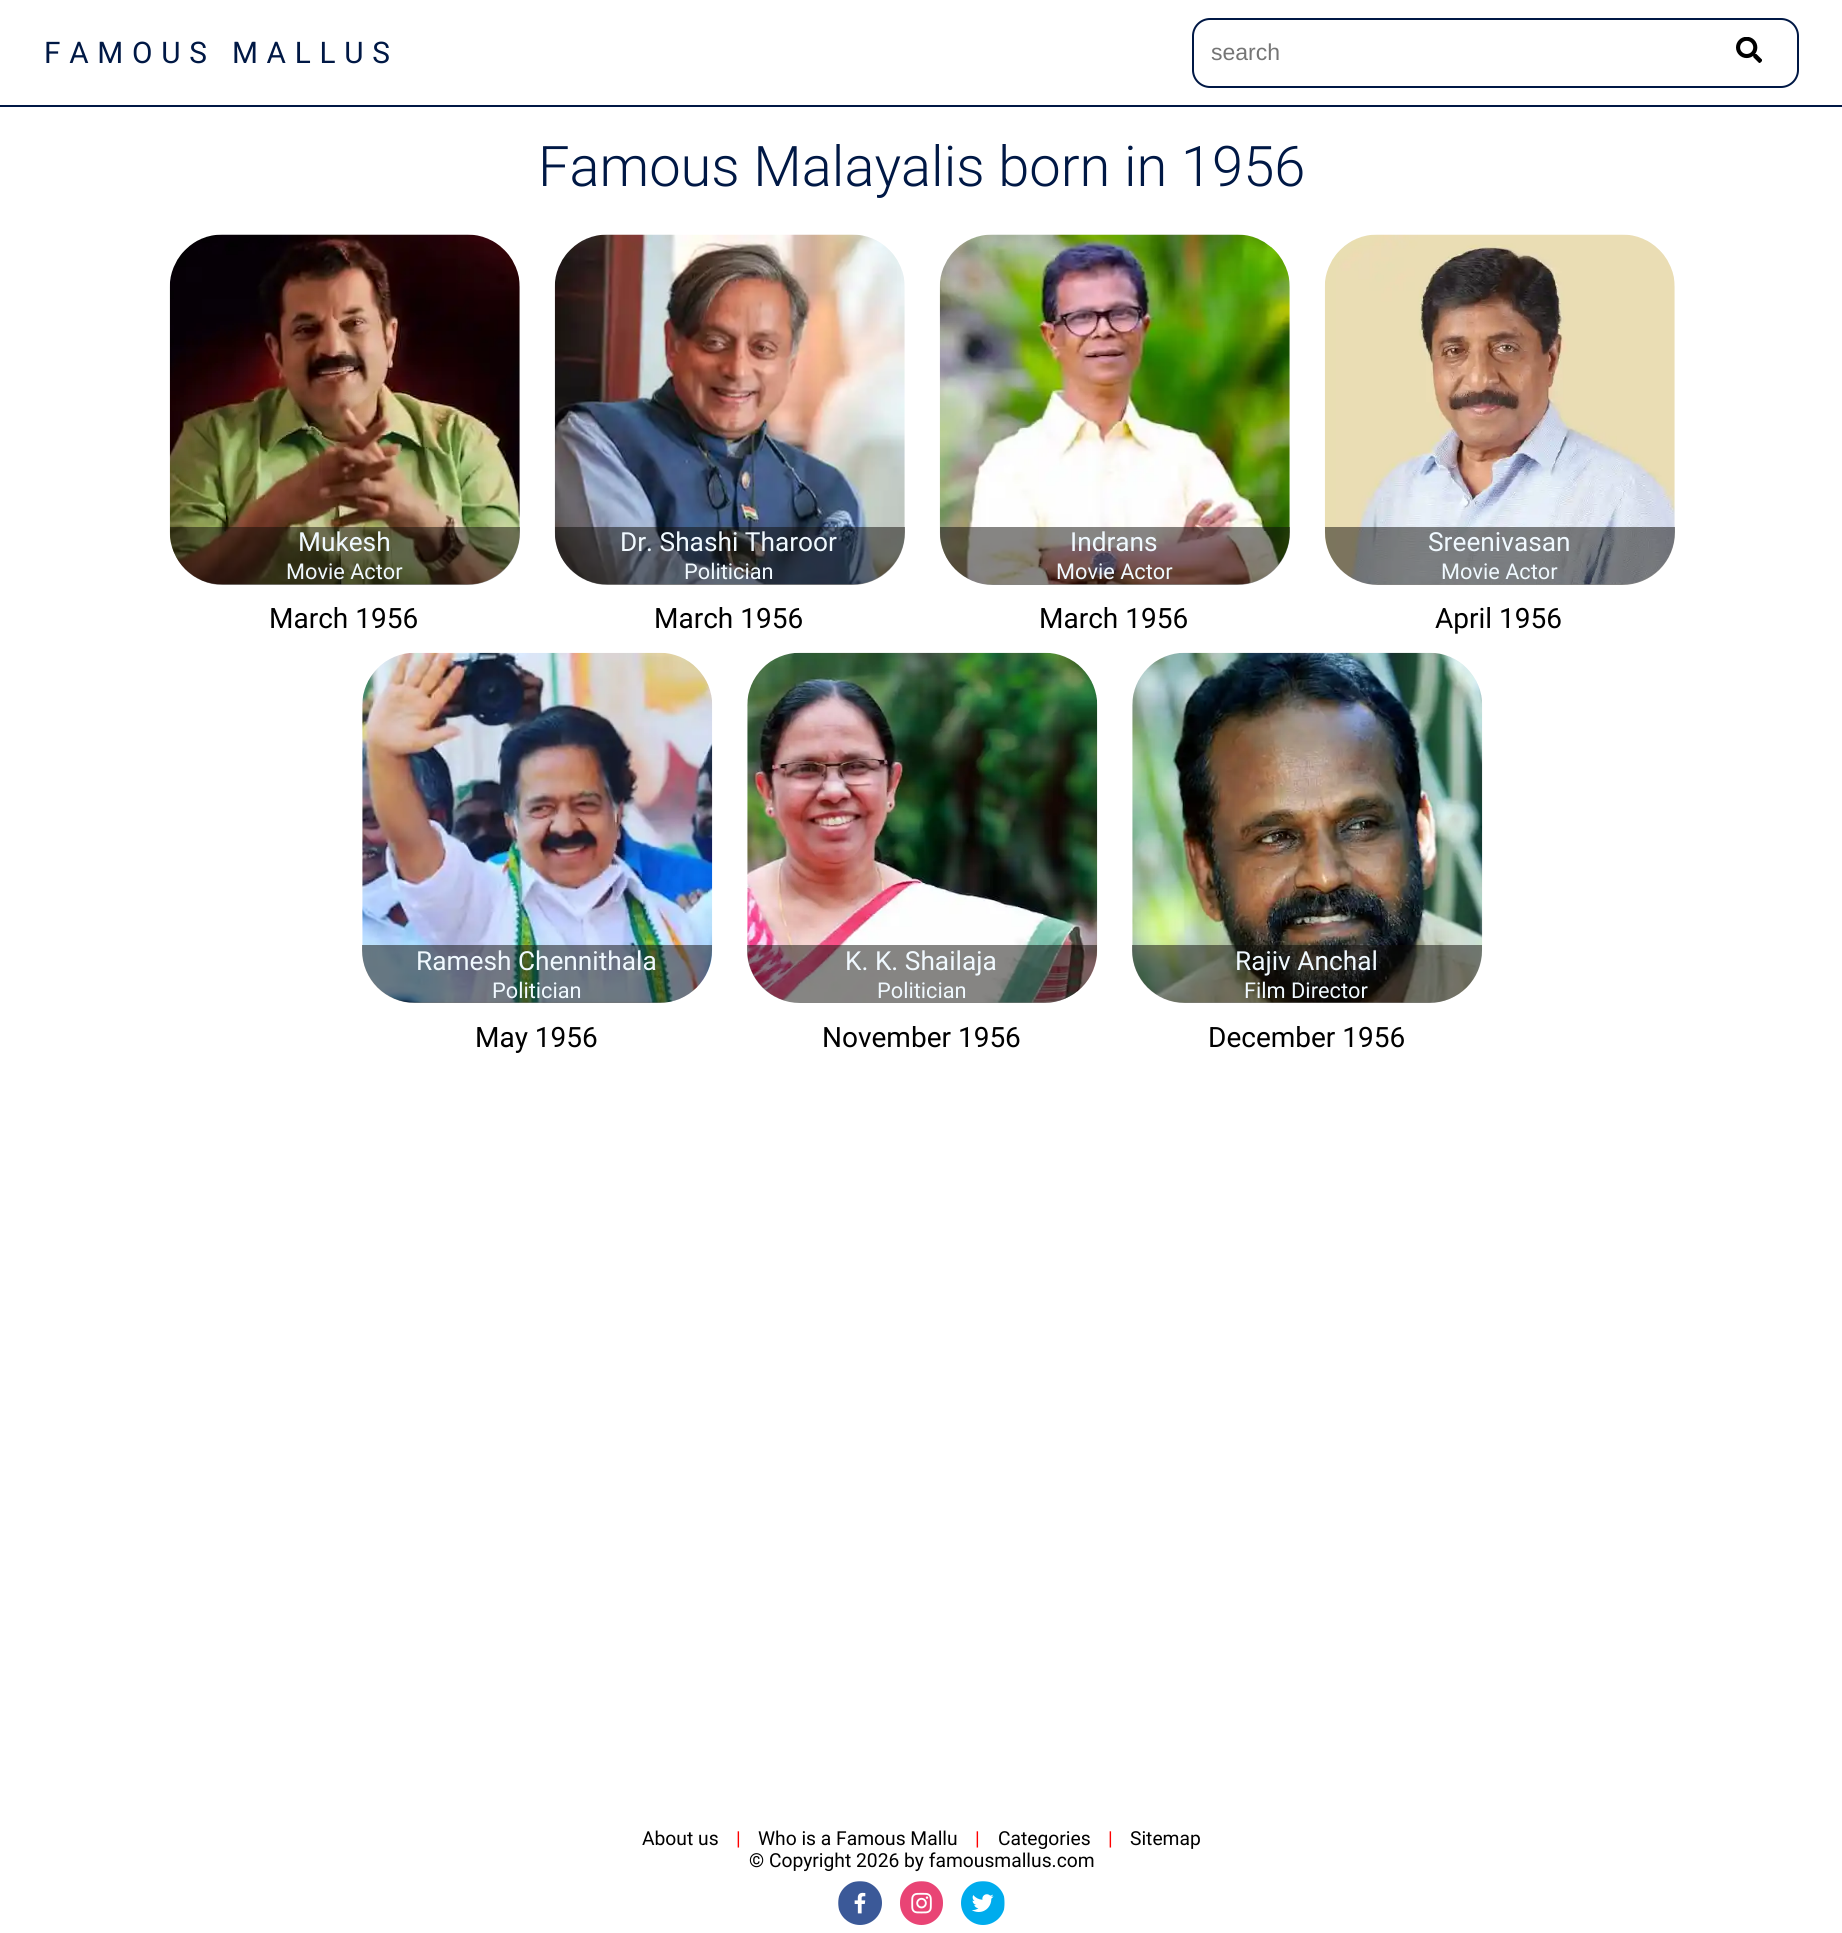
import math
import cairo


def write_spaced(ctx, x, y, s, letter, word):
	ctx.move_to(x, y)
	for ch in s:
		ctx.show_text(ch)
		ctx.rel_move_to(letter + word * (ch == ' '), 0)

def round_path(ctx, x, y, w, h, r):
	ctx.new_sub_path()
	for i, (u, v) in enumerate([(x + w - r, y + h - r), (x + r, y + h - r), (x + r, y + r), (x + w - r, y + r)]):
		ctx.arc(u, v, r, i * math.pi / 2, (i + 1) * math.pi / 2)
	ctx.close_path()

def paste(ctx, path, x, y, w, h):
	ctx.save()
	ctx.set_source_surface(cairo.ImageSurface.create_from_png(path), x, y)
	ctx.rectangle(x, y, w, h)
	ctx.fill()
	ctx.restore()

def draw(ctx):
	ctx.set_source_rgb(1, 1, 1)
	ctx.paint()
	ctx.set_source_rgb(0, 0.094, 0.271)
	ctx.rectangle(0, 105, 1842, 2)
	ctx.fill()
	ctx.select_font_face('Roboto')
	ctx.set_font_size(29.75)
	write_spaced(ctx, 44, 63, 'FAMOUS MALLUS', 8.75, 0)
	round_path(ctx, 1193, 19, 605, 68, 17)
	ctx.stroke()
	ctx.select_font_face('Liberation Sans')
	ctx.set_font_size(23)
	ctx.set_source_rgb(0.459, 0.459, 0.459)
	ctx.move_to(1211, 60)
	ctx.show_text('search')
	paste(ctx, 'media/1.png', 1736, 37, 26, 26)
	ctx.select_font_face('Roboto Light')
	ctx.set_font_size(56)
	ctx.set_source_rgb(0, 0.094, 0.271)
	ctx.move_to(538, 186)
	ctx.show_text('Famous Malayalis born in 1956')
	paste(ctx, 'media/2.png', 169, 234, 351, 351)
	ctx.set_source_rgba(0.055, 0.047, 0.039, 0.5)
	ctx.new_path()
	ctx.move_to(170, 527)
	ctx.line_to(520, 527)
	ctx.line_to(520, 532)
	ctx.curve_to(520, 561.5, 496.5, 585, 467, 585)
	ctx.line_to(223, 585)
	ctx.curve_to(193.5, 585, 170, 561.5, 170, 532)
	ctx.close_path()
	ctx.fill()
	ctx.select_font_face('Roboto')
	ctx.set_font_size(26.25)
	ctx.set_source_rgb(0.941, 0.973, 1)
	ctx.move_to(298, 551)
	ctx.show_text('Mukesh')
	ctx.set_font_size(21.75)
	ctx.move_to(286, 579)
	ctx.show_text('Movie Actor')
	ctx.set_font_size(28)
	ctx.set_source_rgb(0, 0, 0)
	ctx.move_to(269, 628)
	ctx.show_text('March 1956')
	paste(ctx, 'media/3.png', 554, 234, 351, 351)
	ctx.set_source_rgba(0.055, 0.047, 0.039, 0.5)
	ctx.new_path()
	ctx.move_to(555, 527)
	ctx.line_to(905, 527)
	ctx.line_to(905, 532)
	ctx.curve_to(905, 561.5, 881.5, 585, 852, 585)
	ctx.line_to(608, 585)
	ctx.curve_to(578.5, 585, 555, 561.5, 555, 532)
	ctx.close_path()
	ctx.fill()
	ctx.set_font_size(26.25)
	ctx.set_source_rgb(0.941, 0.973, 1)
	ctx.move_to(620, 551)
	ctx.show_text('Dr. Shashi Tharoor')
	ctx.set_font_size(21.75)
	ctx.move_to(684, 579)
	ctx.show_text('Politician')
	ctx.set_font_size(28)
	ctx.set_source_rgb(0, 0, 0)
	ctx.move_to(654, 628)
	ctx.show_text('March 1956')
	paste(ctx, 'media/4.png', 939, 234, 351, 351)
	ctx.set_source_rgba(0.055, 0.047, 0.039, 0.5)
	ctx.new_path()
	ctx.move_to(940, 527)
	ctx.line_to(1290, 527)
	ctx.line_to(1290, 532)
	ctx.curve_to(1290, 561.5, 1266.5, 585, 1237, 585)
	ctx.line_to(993, 585)
	ctx.curve_to(963.5, 585, 940, 561.5, 940, 532)
	ctx.close_path()
	ctx.fill()
	ctx.set_font_size(26.25)
	ctx.set_source_rgb(0.941, 0.973, 1)
	ctx.move_to(1070, 551)
	ctx.show_text('Indrans')
	ctx.set_font_size(21.75)
	ctx.move_to(1056, 579)
	ctx.show_text('Movie Actor')
	ctx.set_font_size(28)
	ctx.set_source_rgb(0, 0, 0)
	ctx.move_to(1039, 628)
	ctx.show_text('March 1956')
	paste(ctx, 'media/5.png', 1324, 234, 351, 351)
	ctx.set_source_rgba(0.055, 0.047, 0.039, 0.5)
	ctx.new_path()
	ctx.move_to(1325, 527)
	ctx.line_to(1675, 527)
	ctx.line_to(1675, 532)
	ctx.curve_to(1675, 561.5, 1651.5, 585, 1622, 585)
	ctx.line_to(1378, 585)
	ctx.curve_to(1348.5, 585, 1325, 561.5, 1325, 532)
	ctx.close_path()
	ctx.fill()
	ctx.set_font_size(26.25)
	ctx.set_source_rgb(0.941, 0.973, 1)
	ctx.move_to(1428, 551)
	ctx.show_text('Sreenivasan')
	ctx.set_font_size(21.75)
	ctx.move_to(1441, 579)
	ctx.show_text('Movie Actor')
	ctx.set_font_size(28)
	ctx.set_source_rgb(0, 0, 0)
	ctx.move_to(1435, 628)
	ctx.show_text('April 1956')
	paste(ctx, 'media/6.png', 362, 652, 351, 351)
	ctx.set_source_rgba(0.055, 0.047, 0.039, 0.5)
	ctx.new_path()
	ctx.move_to(362, 945)
	ctx.line_to(712, 945)
	ctx.line_to(712, 950)
	ctx.curve_to(712, 979.5, 688.5, 1003, 659, 1003)
	ctx.line_to(415, 1003)
	ctx.curve_to(385.5, 1003, 362, 979.5, 362, 950)
	ctx.close_path()
	ctx.fill()
	ctx.set_font_size(26.25)
	ctx.set_source_rgb(0.941, 0.973, 1)
	ctx.move_to(416, 970)
	ctx.show_text('Ramesh Chennithala')
	ctx.set_font_size(21.75)
	ctx.move_to(492, 998)
	ctx.show_text('Politician')
	ctx.set_font_size(28)
	ctx.set_source_rgb(0, 0, 0)
	ctx.move_to(475, 1047)
	ctx.show_text('May 1956')
	paste(ctx, 'media/7.png', 747, 652, 351, 351)
	ctx.set_source_rgba(0.055, 0.047, 0.039, 0.5)
	ctx.new_path()
	ctx.move_to(747, 945)
	ctx.line_to(1097, 945)
	ctx.line_to(1097, 950)
	ctx.curve_to(1097, 979.5, 1073.5, 1003, 1044, 1003)
	ctx.line_to(800, 1003)
	ctx.curve_to(770.5, 1003, 747, 979.5, 747, 950)
	ctx.close_path()
	ctx.fill()
	ctx.set_font_size(26.25)
	ctx.set_source_rgb(0.941, 0.973, 1)
	ctx.move_to(845, 970)
	ctx.show_text('K. K. Shailaja')
	ctx.set_font_size(21.75)
	ctx.move_to(877, 998)
	ctx.show_text('Politician')
	ctx.set_font_size(28)
	ctx.set_source_rgb(0, 0, 0)
	ctx.move_to(822, 1047)
	ctx.show_text('November 1956')
	paste(ctx, 'media/8.png', 1132, 652, 351, 351)
	ctx.set_source_rgba(0.055, 0.047, 0.039, 0.5)
	ctx.new_path()
	ctx.move_to(1132, 945)
	ctx.line_to(1482, 945)
	ctx.line_to(1482, 950)
	ctx.curve_to(1482, 979.5, 1458.5, 1003, 1429, 1003)
	ctx.line_to(1185, 1003)
	ctx.curve_to(1155.5, 1003, 1132, 979.5, 1132, 950)
	ctx.close_path()
	ctx.fill()
	ctx.set_font_size(26.25)
	ctx.set_source_rgb(0.941, 0.973, 1)
	ctx.move_to(1235, 970)
	ctx.show_text('Rajiv Anchal')
	ctx.set_font_size(21.75)
	ctx.move_to(1244, 998)
	ctx.show_text('Film Director')
	ctx.set_font_size(28)
	ctx.set_source_rgb(0, 0, 0)
	ctx.move_to(1208, 1047)
	ctx.show_text('December 1956')
	ctx.set_font_size(19.25)
	ctx.move_to(642, 1845)
	ctx.show_text('About us')
	ctx.set_source_rgb(1, 0, 0)
	ctx.move_to(736, 1845)
	ctx.show_text('|')
	ctx.set_source_rgb(0, 0, 0)
	ctx.move_to(758, 1845)
	ctx.show_text('Who is a Famous Mallu')
	ctx.set_source_rgb(1, 0, 0)
	ctx.move_to(975, 1845)
	ctx.show_text('|')
	ctx.set_source_rgb(0, 0, 0)
	ctx.move_to(998, 1845)
	ctx.show_text('Categories')
	ctx.set_source_rgb(1, 0, 0)
	ctx.move_to(1108, 1845)
	ctx.show_text('|')
	ctx.set_source_rgb(0, 0, 0)
	ctx.move_to(1130, 1845)
	ctx.show_text('Sitemap')
	ctx.move_to(749, 1867)
	ctx.show_text('© Copyright 2026 by famousmallus.com')
	paste(ctx, 'media/9.png', 838, 1881, 44, 44)
	paste(ctx, 'media/10.png', 900, 1881, 43, 44)
	paste(ctx, 'media/11.png', 961, 1881, 44, 44)


surface = cairo.ImageSurface(cairo.FORMAT_RGB24, 1842, 1933)
ctx = cairo.Context(surface)
options = cairo.FontOptions()
options.set_hint_metrics(cairo.HINT_METRICS_OFF)
options.set_hint_style(cairo.HINT_STYLE_NONE)
ctx.set_font_options(options)
ctx.set_miter_limit(4)
draw(ctx)
surface.write_to_png('image.png')
